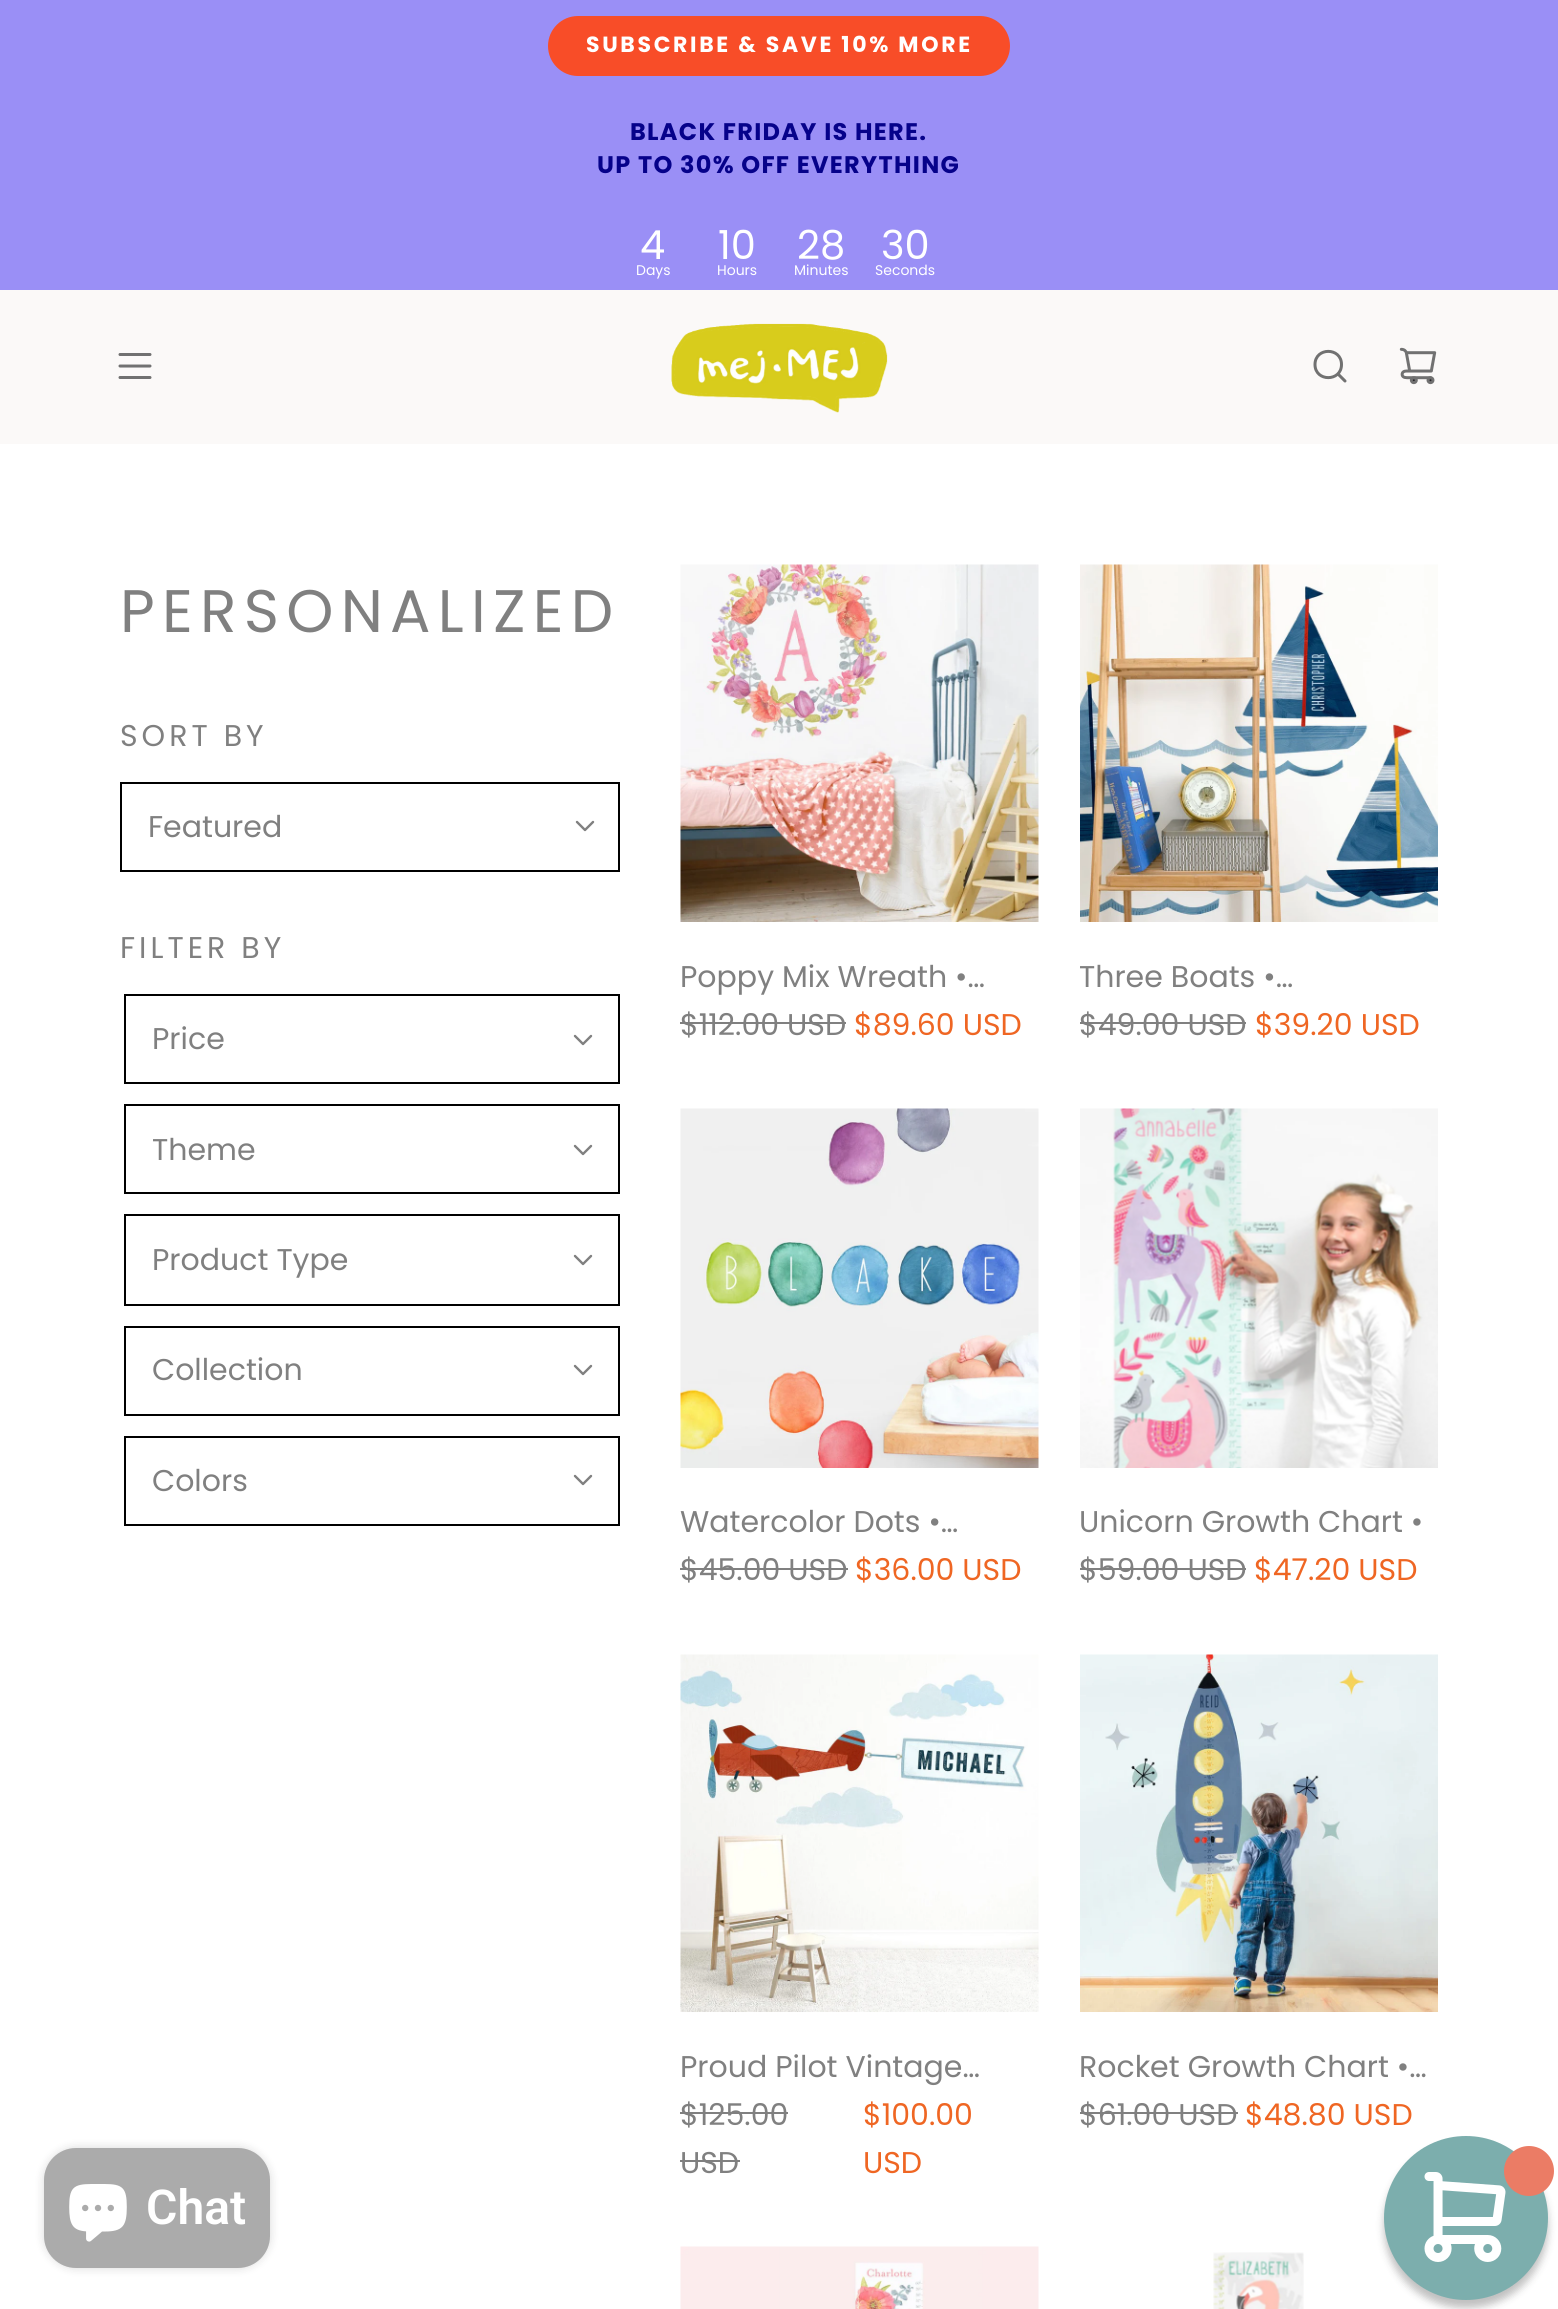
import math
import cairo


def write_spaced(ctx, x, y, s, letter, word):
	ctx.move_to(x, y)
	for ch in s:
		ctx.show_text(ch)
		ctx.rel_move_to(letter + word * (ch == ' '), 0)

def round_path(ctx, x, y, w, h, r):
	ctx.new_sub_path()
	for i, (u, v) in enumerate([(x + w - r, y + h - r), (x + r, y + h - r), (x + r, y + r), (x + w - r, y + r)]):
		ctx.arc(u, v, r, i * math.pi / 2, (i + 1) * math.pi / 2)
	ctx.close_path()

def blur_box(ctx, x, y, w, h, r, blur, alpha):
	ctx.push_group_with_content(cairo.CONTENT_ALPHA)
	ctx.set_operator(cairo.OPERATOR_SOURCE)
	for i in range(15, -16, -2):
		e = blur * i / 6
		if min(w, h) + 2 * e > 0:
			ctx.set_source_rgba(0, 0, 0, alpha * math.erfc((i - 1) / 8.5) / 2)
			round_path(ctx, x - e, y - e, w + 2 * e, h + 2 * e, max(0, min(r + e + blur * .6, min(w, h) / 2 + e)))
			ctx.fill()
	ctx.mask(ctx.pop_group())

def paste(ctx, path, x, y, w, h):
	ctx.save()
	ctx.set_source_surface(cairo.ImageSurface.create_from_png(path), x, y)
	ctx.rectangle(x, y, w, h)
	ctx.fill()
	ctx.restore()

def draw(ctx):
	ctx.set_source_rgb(1, 1, 1)
	ctx.paint()
	ctx.set_source_rgb(0.604, 0.561, 0.961)
	ctx.rectangle(0, 0, 1558, 290)
	ctx.fill()
	ctx.set_source_rgb(0.969, 0.302, 0.157)
	round_path(ctx, 548, 16, 462, 60, 30)
	ctx.fill()
	ctx.select_font_face('Poppins', cairo.FONT_SLANT_NORMAL, cairo.FONT_WEIGHT_BOLD)
	ctx.set_font_size(22)
	ctx.set_source_rgb(1, 1, 1)
	write_spaced(ctx, 586, 52, 'SUBSCRIBE & SAVE 10% MORE', 2.65, 0)
	ctx.set_font_size(24)
	ctx.set_source_rgb(0.027, 0.008, 0.541)
	write_spaced(ctx, 630, 140, 'BLACK FRIDAY IS HERE.', 1.3, 0)
	write_spaced(ctx, 597, 173, 'UP TO 30% OFF EVERYTHING', 1.3, 0)
	ctx.select_font_face('Poppins')
	ctx.set_font_size(40)
	ctx.set_source_rgb(1, 1, 1)
	ctx.move_to(640, 259)
	ctx.show_text('4')
	ctx.set_font_size(14)
	ctx.move_to(636, 275)
	ctx.show_text('Days')
	ctx.set_font_size(40)
	ctx.move_to(718, 259)
	ctx.show_text('10')
	ctx.set_font_size(14)
	ctx.move_to(717, 275)
	ctx.show_text('Hours')
	ctx.set_font_size(40)
	ctx.move_to(797, 259)
	ctx.show_text('28')
	ctx.set_font_size(14)
	ctx.move_to(794, 275)
	ctx.show_text('Minutes')
	ctx.set_font_size(40)
	ctx.move_to(881, 259)
	ctx.show_text('30')
	ctx.set_font_size(14)
	ctx.move_to(875, 275)
	ctx.show_text('Seconds')
	ctx.set_source_rgb(0.984, 0.976, 0.969)
	ctx.rectangle(0, 290, 1558, 154)
	ctx.fill()
	ctx.new_path()
	ctx.move_to(120, 354.5)
	ctx.line_to(150, 354.5)
	ctx.move_to(120, 366)
	ctx.line_to(150, 366)
	ctx.move_to(120, 377.5)
	ctx.line_to(150, 377.5)
	ctx.set_source_rgb(0.443, 0.443, 0.443)
	ctx.set_line_width(3)
	ctx.set_line_cap(cairo.LINE_CAP_ROUND)
	ctx.set_line_join(cairo.LINE_JOIN_ROUND)
	ctx.stroke()
	paste(ctx, 'media/1.png', 671, 323, 217, 90)
	ctx.new_path()
	ctx.move_to(1338.5, 374.5)
	ctx.line_to(1345, 381)
	ctx.move_to(1315, 364.5)
	ctx.curve_to(1315, 382, 1341.5, 382, 1341.5, 364.5)
	ctx.curve_to(1341.5, 347, 1315, 347, 1315, 364.5)
	ctx.close_path()
	ctx.stroke()
	paste(ctx, 'media/2.png', 1399, 347, 38, 38)
	ctx.set_font_size(60)
	ctx.set_source_rgb(0.502, 0.502, 0.502)
	write_spaced(ctx, 120, 632, 'PERSONALIZED', 7.25, 0)
	ctx.set_font_size(30)
	write_spaced(ctx, 120, 746, 'SORT BY', 4, 0)
	ctx.rectangle(121, 783, 498, 88)
	ctx.set_source_rgb(0, 0, 0)
	ctx.set_line_width(2)
	ctx.set_line_cap(cairo.LINE_CAP_BUTT)
	ctx.set_line_join(cairo.LINE_JOIN_MITER)
	ctx.stroke()
	ctx.set_source_rgb(0.502, 0.502, 0.502)
	ctx.move_to(148, 837)
	ctx.show_text('Featured')
	ctx.new_path()
	ctx.move_to(577, 822)
	ctx.line_to(585, 830)
	ctx.line_to(593, 822)
	ctx.set_line_width(2.4)
	ctx.set_line_cap(cairo.LINE_CAP_ROUND)
	ctx.set_line_join(cairo.LINE_JOIN_ROUND)
	ctx.stroke()
	write_spaced(ctx, 120, 958, 'FILTER BY', 4, 0)
	ctx.rectangle(125, 995, 494, 88)
	ctx.set_source_rgb(0, 0, 0)
	ctx.set_line_width(2)
	ctx.set_line_cap(cairo.LINE_CAP_BUTT)
	ctx.set_line_join(cairo.LINE_JOIN_MITER)
	ctx.stroke()
	ctx.set_source_rgb(0.502, 0.502, 0.502)
	ctx.move_to(152, 1049)
	ctx.show_text('Price')
	ctx.new_path()
	ctx.move_to(575, 1036)
	ctx.line_to(583, 1044)
	ctx.line_to(591, 1036)
	ctx.set_line_width(2.4)
	ctx.set_line_cap(cairo.LINE_CAP_ROUND)
	ctx.set_line_join(cairo.LINE_JOIN_ROUND)
	ctx.stroke()
	ctx.rectangle(125, 1105, 494, 88)
	ctx.set_source_rgb(0, 0, 0)
	ctx.set_line_width(2)
	ctx.set_line_cap(cairo.LINE_CAP_BUTT)
	ctx.set_line_join(cairo.LINE_JOIN_MITER)
	ctx.stroke()
	ctx.set_source_rgb(0.502, 0.502, 0.502)
	ctx.move_to(152, 1160)
	ctx.show_text('Theme')
	ctx.new_path()
	ctx.move_to(575, 1146)
	ctx.line_to(583, 1154)
	ctx.line_to(591, 1146)
	ctx.set_line_width(2.4)
	ctx.set_line_cap(cairo.LINE_CAP_ROUND)
	ctx.set_line_join(cairo.LINE_JOIN_ROUND)
	ctx.stroke()
	ctx.rectangle(125, 1215, 494, 90)
	ctx.set_source_rgb(0, 0, 0)
	ctx.set_line_width(2)
	ctx.set_line_cap(cairo.LINE_CAP_BUTT)
	ctx.set_line_join(cairo.LINE_JOIN_MITER)
	ctx.stroke()
	ctx.set_source_rgb(0.502, 0.502, 0.502)
	ctx.move_to(152, 1270)
	ctx.show_text('Product Type')
	ctx.new_path()
	ctx.move_to(575, 1256)
	ctx.line_to(583, 1264)
	ctx.line_to(591, 1256)
	ctx.set_line_width(2.4)
	ctx.set_line_cap(cairo.LINE_CAP_ROUND)
	ctx.set_line_join(cairo.LINE_JOIN_ROUND)
	ctx.stroke()
	ctx.rectangle(125, 1327, 494, 88)
	ctx.set_source_rgb(0, 0, 0)
	ctx.set_line_width(2)
	ctx.set_line_cap(cairo.LINE_CAP_BUTT)
	ctx.set_line_join(cairo.LINE_JOIN_MITER)
	ctx.stroke()
	ctx.set_source_rgb(0.502, 0.502, 0.502)
	ctx.move_to(152, 1380)
	ctx.show_text('Collection')
	ctx.new_path()
	ctx.move_to(575, 1366)
	ctx.line_to(583, 1374)
	ctx.line_to(591, 1366)
	ctx.set_line_width(2.4)
	ctx.set_line_cap(cairo.LINE_CAP_ROUND)
	ctx.set_line_join(cairo.LINE_JOIN_ROUND)
	ctx.stroke()
	ctx.rectangle(125, 1437, 494, 88)
	ctx.set_source_rgb(0, 0, 0)
	ctx.set_line_width(2)
	ctx.set_line_cap(cairo.LINE_CAP_BUTT)
	ctx.set_line_join(cairo.LINE_JOIN_MITER)
	ctx.stroke()
	ctx.set_source_rgb(0.502, 0.502, 0.502)
	ctx.move_to(152, 1491)
	ctx.show_text('Colors')
	ctx.new_path()
	ctx.move_to(575, 1476)
	ctx.line_to(583, 1484)
	ctx.line_to(591, 1476)
	ctx.set_line_width(2.4)
	ctx.set_line_cap(cairo.LINE_CAP_ROUND)
	ctx.set_line_join(cairo.LINE_JOIN_ROUND)
	ctx.stroke()
	paste(ctx, 'media/3.png', 680, 564, 359, 358)
	ctx.move_to(680, 987)
	ctx.show_text('Poppy Mix Wreath •…')
	ctx.move_to(680, 1035)
	ctx.show_text('$112.00 USD')
	ctx.rectangle(680, 1022, 166, 2)
	ctx.fill()
	ctx.set_source_rgb(0.937, 0.4, 0.137)
	ctx.move_to(854, 1035)
	ctx.show_text('$89.60 USD')
	paste(ctx, 'media/4.png', 1080, 564, 358, 358)
	ctx.set_source_rgb(0.502, 0.502, 0.502)
	ctx.move_to(1079, 987)
	ctx.show_text('Three Boats •…')
	ctx.move_to(1079, 1035)
	ctx.show_text('$49.00 USD')
	ctx.rectangle(1080, 1022, 166, 2)
	ctx.fill()
	ctx.set_source_rgb(0.937, 0.4, 0.137)
	ctx.move_to(1255, 1035)
	ctx.show_text('$39.20 USD')
	paste(ctx, 'media/5.png', 680, 1108, 359, 360)
	ctx.set_source_rgb(0.502, 0.502, 0.502)
	ctx.move_to(680, 1532)
	ctx.show_text('Watercolor Dots •…')
	ctx.move_to(680, 1580)
	ctx.show_text('$45.00 USD')
	ctx.rectangle(680, 1568, 168, 2)
	ctx.fill()
	ctx.set_source_rgb(0.937, 0.4, 0.137)
	ctx.move_to(855, 1580)
	ctx.show_text('$36.00 USD')
	paste(ctx, 'media/6.png', 1080, 1108, 358, 360)
	ctx.set_source_rgb(0.502, 0.502, 0.502)
	ctx.move_to(1079, 1532)
	ctx.show_text('Unicorn Growth Chart •')
	ctx.move_to(1079, 1580)
	ctx.show_text('$59.00 USD')
	ctx.rectangle(1080, 1568, 166, 2)
	ctx.fill()
	ctx.set_source_rgb(0.937, 0.4, 0.137)
	ctx.move_to(1254, 1580)
	ctx.show_text('$47.20 USD')
	paste(ctx, 'media/7.png', 680, 1654, 359, 358)
	ctx.set_source_rgb(0.502, 0.502, 0.502)
	ctx.move_to(680, 2077)
	ctx.show_text('Proud Pilot Vintage…')
	ctx.move_to(680, 2125)
	ctx.show_text('$125.00')
	ctx.rectangle(680, 2112, 108, 2)
	ctx.fill()
	ctx.move_to(680, 2173)
	ctx.show_text('USD')
	ctx.rectangle(680, 2160, 60, 2)
	ctx.fill()
	ctx.set_source_rgb(0.937, 0.4, 0.137)
	ctx.move_to(863, 2125)
	ctx.show_text('$100.00')
	ctx.move_to(863, 2173)
	ctx.show_text('USD')
	paste(ctx, 'media/8.png', 1080, 1654, 358, 358)
	ctx.set_source_rgb(0.502, 0.502, 0.502)
	ctx.move_to(1079, 2077)
	ctx.show_text('Rocket Growth Chart •…')
	ctx.move_to(1079, 2125)
	ctx.show_text('$61.00 USD')
	ctx.rectangle(1080, 2112, 158, 2)
	ctx.fill()
	ctx.set_source_rgb(0.937, 0.4, 0.137)
	ctx.move_to(1245, 2125)
	ctx.show_text('$48.80 USD')
	paste(ctx, 'media/9.png', 680, 2246, 359, 63)
	paste(ctx, 'media/10.png', 1213, 2252, 91, 57)
	ctx.set_source_rgb(0, 0, 0)
	blur_box(ctx, 44, 2148, 226, 120, 32, 5, 0.15)
	ctx.set_source_rgb(0.671, 0.671, 0.671)
	round_path(ctx, 44, 2148, 226, 120, 32)
	ctx.fill()
	paste(ctx, 'media/11.png', 69, 2184, 58, 58)
	ctx.select_font_face('Roboto SemiBold')
	ctx.set_font_size(48)
	ctx.set_source_rgb(1, 1, 1)
	ctx.move_to(146, 2224)
	ctx.show_text('Chat')
	ctx.set_source_rgb(0, 0, 0)
	blur_box(ctx, 1384, 2144, 164, 164, 82, 4, 0.25)
	ctx.set_source_rgb(0.486, 0.682, 0.678)
	ctx.arc(1466, 2218, 82, 0, 2 * math.pi)
	ctx.fill()
	ctx.set_source_rgb(0.918, 0.486, 0.396)
	ctx.arc(1529, 2171, 25, 0, 2 * math.pi)
	ctx.fill()
	paste(ctx, 'media/12.png', 1424, 2172, 82, 90)


surface = cairo.ImageSurface(cairo.FORMAT_RGB24, 1558, 2309)
ctx = cairo.Context(surface)
options = cairo.FontOptions()
options.set_hint_metrics(cairo.HINT_METRICS_OFF)
options.set_hint_style(cairo.HINT_STYLE_NONE)
ctx.set_font_options(options)
ctx.set_miter_limit(4)
draw(ctx)
surface.write_to_png('image.png')
